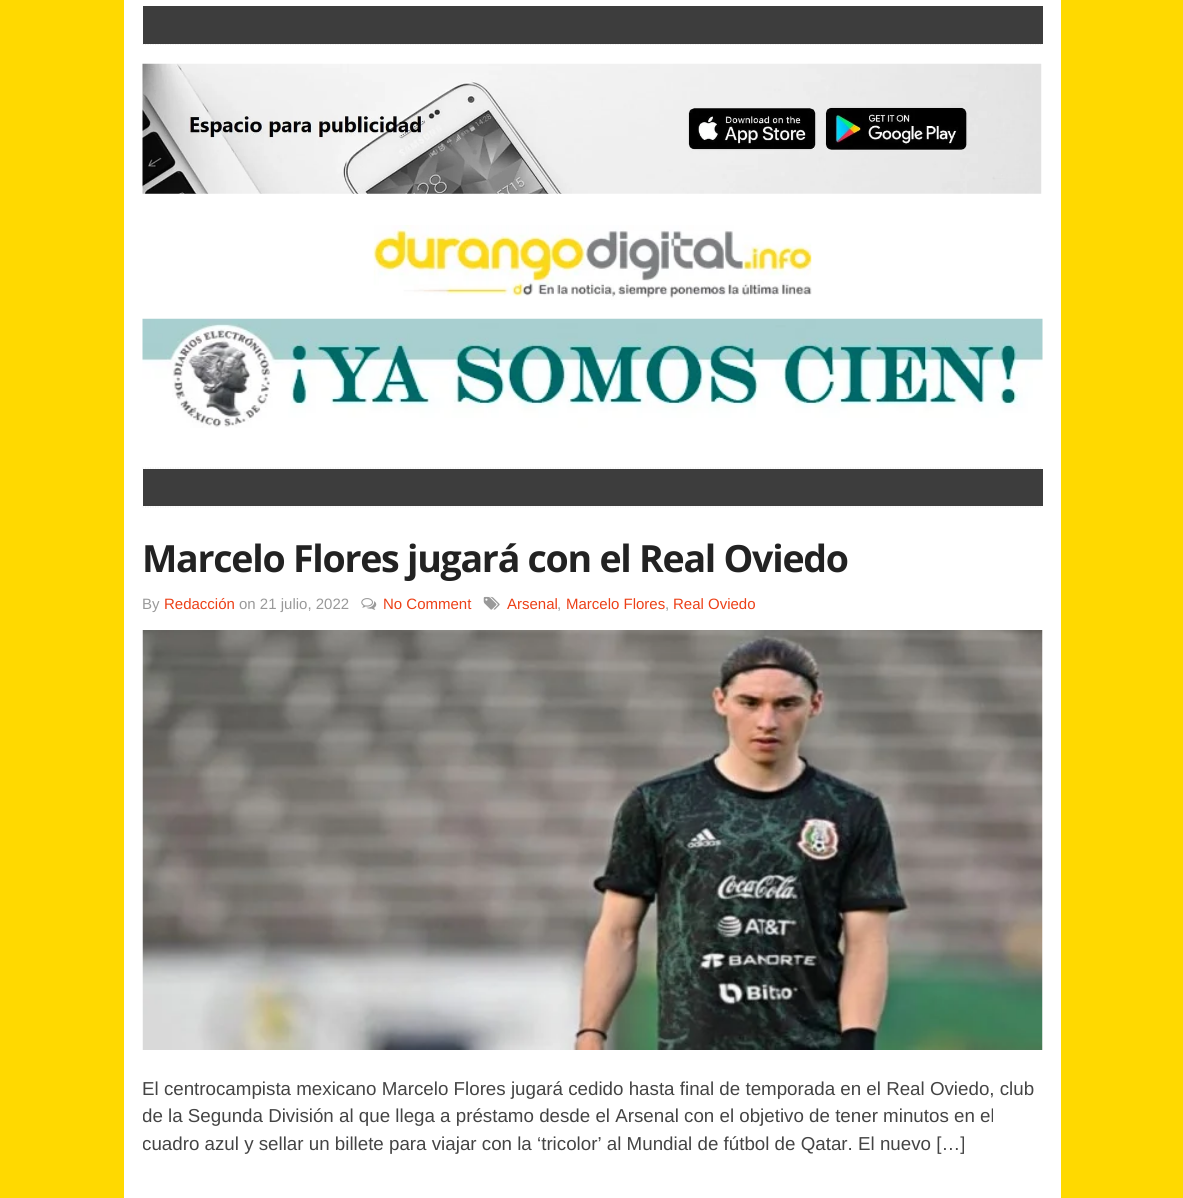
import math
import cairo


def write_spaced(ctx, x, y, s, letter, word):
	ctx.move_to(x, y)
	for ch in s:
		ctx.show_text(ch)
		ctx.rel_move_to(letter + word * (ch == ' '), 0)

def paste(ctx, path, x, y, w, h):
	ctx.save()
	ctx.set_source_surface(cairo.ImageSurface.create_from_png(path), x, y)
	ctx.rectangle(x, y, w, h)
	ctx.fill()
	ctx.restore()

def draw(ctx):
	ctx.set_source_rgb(1, 0.851, 0)
	ctx.paint()
	ctx.set_source_rgb(1, 1, 1)
	ctx.rectangle(124, 0, 937, 1198)
	ctx.fill()
	ctx.new_path()
	ctx.move_to(142.5, 44.5)
	ctx.line_to(1042.5, 44.5)
	ctx.set_source_rgb(0.937, 0.937, 0.937)
	ctx.set_line_width(1.2)
	ctx.set_dash([1.25, 1.25])
	ctx.stroke()
	ctx.set_source_rgb(0.239, 0.239, 0.239)
	ctx.rectangle(143, 6, 900, 38)
	ctx.fill()
	paste(ctx, 'media/1.png', 142, 63, 900, 131)
	paste(ctx, 'media/2.png', 373, 225, 439, 75)
	paste(ctx, 'media/3.png', 142, 318, 901, 110)
	ctx.new_path()
	ctx.move_to(142.5, 468)
	ctx.line_to(1042.5, 468)
	ctx.set_source_rgb(0.937, 0.937, 0.937)
	ctx.stroke()
	ctx.new_path()
	ctx.move_to(142.5, 507)
	ctx.line_to(1042.5, 507)
	ctx.stroke()
	ctx.set_source_rgb(0.239, 0.239, 0.239)
	ctx.rectangle(143, 469, 900, 37)
	ctx.fill()
	ctx.select_font_face('Open Sans', cairo.FONT_SLANT_NORMAL, cairo.FONT_WEIGHT_BOLD)
	ctx.set_font_size(37.5)
	ctx.set_source_rgb(0.133, 0.133, 0.133)
	write_spaced(ctx, 142, 572, 'Marcelo Flores jugará con el Real Oviedo', -1.25, 0)
	ctx.select_font_face('Liberation Sans')
	ctx.set_font_size(15)
	ctx.set_source_rgb(0.6, 0.6, 0.6)
	ctx.move_to(142, 609)
	ctx.show_text('By')
	ctx.set_source_rgb(0.925, 0.251, 0.09)
	ctx.move_to(164, 609)
	ctx.show_text('Redacción')
	ctx.set_source_rgb(0.6, 0.6, 0.6)
	ctx.move_to(239, 609)
	ctx.show_text('on 21 julio, 2022')
	paste(ctx, 'media/4.png', 361, 598, 16, 12)
	ctx.set_source_rgb(0.925, 0.251, 0.09)
	ctx.move_to(383, 609)
	ctx.show_text('No Comment')
	paste(ctx, 'media/5.png', 483, 596, 17, 14)
	ctx.move_to(507, 609)
	ctx.show_text('Arsenal')
	ctx.set_source_rgb(0.6, 0.6, 0.6)
	ctx.move_to(557, 609)
	ctx.show_text(',')
	ctx.set_source_rgb(0.925, 0.251, 0.09)
	ctx.move_to(566, 609)
	ctx.show_text('Marcelo Flores')
	ctx.set_source_rgb(0.6, 0.6, 0.6)
	ctx.move_to(665, 609)
	ctx.show_text(',')
	ctx.set_source_rgb(0.925, 0.251, 0.09)
	ctx.move_to(673, 609)
	ctx.show_text('Real Oviedo')
	paste(ctx, 'media/6.png', 142, 630, 901, 420)
	ctx.set_font_size(18.75)
	ctx.set_source_rgb(0.267, 0.267, 0.267)
	ctx.move_to(142, 1095)
	ctx.show_text('El centrocampista mexicano Marcelo Flores jugará cedido hasta final de temporada en el Real Oviedo, club')
	ctx.save()
	ctx.rectangle(143, 539, 900, 656)
	ctx.clip()
	ctx.move_to(142, 1122)
	ctx.show_text('de la Segunda División al que llega a préstamo desde el Arsenal con el objetivo de tener minutos en el')
	ctx.move_to(142, 1150)
	ctx.show_text('cuadro azul y sellar un billete para viajar con la ‘tricolor’ al Mundial de fútbol de Qatar. El nuevo […]')
	ctx.restore()


surface = cairo.ImageSurface(cairo.FORMAT_RGB24, 1183, 1198)
ctx = cairo.Context(surface)
options = cairo.FontOptions()
options.set_hint_metrics(cairo.HINT_METRICS_OFF)
options.set_hint_style(cairo.HINT_STYLE_NONE)
ctx.set_font_options(options)
ctx.set_miter_limit(4)
draw(ctx)
surface.write_to_png('image.png')
